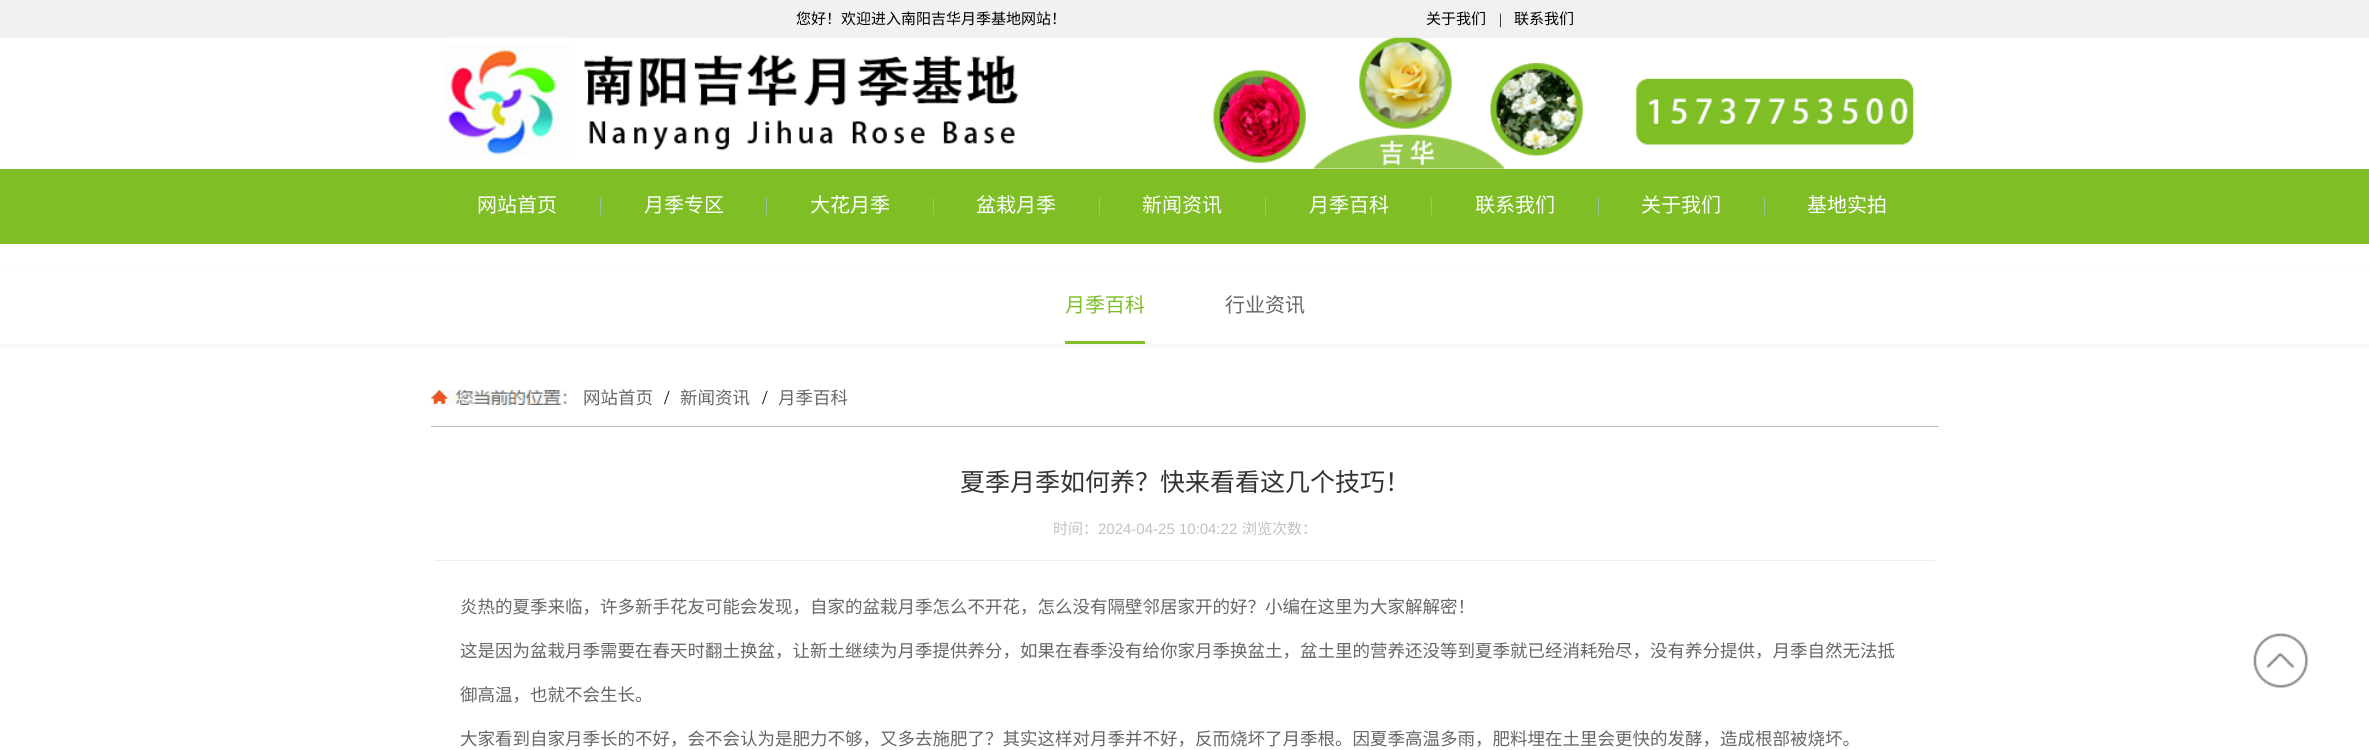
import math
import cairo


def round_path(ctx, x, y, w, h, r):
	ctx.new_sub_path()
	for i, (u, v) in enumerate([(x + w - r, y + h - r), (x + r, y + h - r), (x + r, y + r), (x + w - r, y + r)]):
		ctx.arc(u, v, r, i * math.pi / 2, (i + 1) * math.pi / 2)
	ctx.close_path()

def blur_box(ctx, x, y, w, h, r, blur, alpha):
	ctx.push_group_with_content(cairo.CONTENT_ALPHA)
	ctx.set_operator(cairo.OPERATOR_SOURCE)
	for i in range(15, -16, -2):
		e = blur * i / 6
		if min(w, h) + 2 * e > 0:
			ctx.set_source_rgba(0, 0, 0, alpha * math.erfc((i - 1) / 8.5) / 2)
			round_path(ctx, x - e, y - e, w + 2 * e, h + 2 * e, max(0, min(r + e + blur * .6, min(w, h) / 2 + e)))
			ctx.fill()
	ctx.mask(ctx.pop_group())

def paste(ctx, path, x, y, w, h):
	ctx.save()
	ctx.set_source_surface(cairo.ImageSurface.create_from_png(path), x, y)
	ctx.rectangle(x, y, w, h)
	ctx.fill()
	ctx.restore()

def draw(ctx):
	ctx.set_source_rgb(1, 1, 1)
	ctx.paint()
	ctx.set_source_rgb(0.945, 0.945, 0.945)
	ctx.rectangle(0, 0, 2369, 38)
	ctx.fill()
	ctx.select_font_face('Noto Sans CJK SC')
	ctx.set_font_size(15)
	ctx.set_source_rgb(0, 0, 0)
	ctx.move_to(796, 24)
	ctx.show_text('您好！欢迎进入南阳吉华月季基地网站！')
	ctx.move_to(1426, 24)
	ctx.show_text('关于我们')
	ctx.select_font_face('Liberation Serif')
	ctx.move_to(1499, 24)
	ctx.show_text('|')
	ctx.select_font_face('Noto Sans CJK SC')
	ctx.move_to(1514, 24)
	ctx.show_text('联系我们')
	paste(ctx, 'media/1.png', 446, 37, 1468, 132)
	ctx.set_source_rgb(0.498, 0.745, 0.145)
	ctx.rectangle(0, 169, 2369, 75)
	ctx.fill()
	ctx.set_font_size(20)
	ctx.set_source_rgb(1, 1, 1)
	ctx.move_to(477, 212)
	ctx.show_text('网站首页')
	ctx.set_source_rgb(0.557, 0.78, 0.592)
	ctx.rectangle(600, 198, 1, 17)
	ctx.fill()
	ctx.set_source_rgb(1, 1, 1)
	ctx.move_to(644, 212)
	ctx.show_text('月季专区')
	ctx.set_source_rgb(0.557, 0.78, 0.592)
	ctx.rectangle(766, 198, 1, 17)
	ctx.fill()
	ctx.set_source_rgb(1, 1, 1)
	ctx.move_to(810, 212)
	ctx.show_text('大花月季')
	ctx.set_source_rgb(0.557, 0.78, 0.592)
	ctx.rectangle(933, 198, 1, 17)
	ctx.fill()
	ctx.set_source_rgb(1, 1, 1)
	ctx.move_to(976, 212)
	ctx.show_text('盆栽月季')
	ctx.set_source_rgb(0.557, 0.78, 0.592)
	ctx.rectangle(1099, 198, 1, 17)
	ctx.fill()
	ctx.set_source_rgb(1, 1, 1)
	ctx.move_to(1142, 212)
	ctx.show_text('新闻资讯')
	ctx.set_source_rgb(0.557, 0.78, 0.592)
	ctx.rectangle(1265, 198, 1, 17)
	ctx.fill()
	ctx.set_source_rgb(1, 1, 1)
	ctx.move_to(1309, 212)
	ctx.show_text('月季百科')
	ctx.set_source_rgb(0.557, 0.78, 0.592)
	ctx.rectangle(1431, 198, 1, 17)
	ctx.fill()
	ctx.set_source_rgb(1, 1, 1)
	ctx.move_to(1475, 212)
	ctx.show_text('联系我们')
	ctx.set_source_rgb(0.557, 0.78, 0.592)
	ctx.rectangle(1598, 198, 1, 17)
	ctx.fill()
	ctx.set_source_rgb(1, 1, 1)
	ctx.move_to(1641, 212)
	ctx.show_text('关于我们')
	ctx.set_source_rgb(0.557, 0.78, 0.592)
	ctx.rectangle(1764, 198, 1, 17)
	ctx.fill()
	ctx.set_source_rgb(1, 1, 1)
	ctx.move_to(1807, 212)
	ctx.show_text('基地实拍')
	ctx.set_source_rgb(0, 0, 0)
	blur_box(ctx, 0, 271, 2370, 75, 0, 2.5, 0.05)
	ctx.set_source_rgb(1, 1, 1)
	ctx.rectangle(0, 269, 2369, 75)
	ctx.fill()
	ctx.set_source_rgb(0.498, 0.745, 0.145)
	ctx.move_to(1065, 312)
	ctx.show_text('月季百科')
	ctx.rectangle(1065, 341, 80, 3)
	ctx.fill()
	ctx.set_source_rgb(0.4, 0.4, 0.4)
	ctx.move_to(1225, 312)
	ctx.show_text('行业资讯')
	paste(ctx, 'media/2.png', 431, 390, 136, 15)
	ctx.set_source_rgb(0.749, 0.749, 0.749)
	ctx.rectangle(431, 426, 1508, 1)
	ctx.fill()
	ctx.set_font_size(17.5)
	ctx.set_source_rgb(0.4, 0.4, 0.4)
	ctx.move_to(583, 404)
	ctx.show_text('网站首页')
	ctx.select_font_face('Liberation Serif')
	ctx.set_font_size(20)
	ctx.set_source_rgb(0, 0, 0)
	ctx.move_to(664, 404)
	ctx.show_text('/')
	ctx.select_font_face('Noto Sans CJK SC')
	ctx.set_font_size(17.5)
	ctx.set_source_rgb(0.4, 0.4, 0.4)
	ctx.move_to(680, 404)
	ctx.show_text('新闻资讯')
	ctx.select_font_face('Liberation Serif')
	ctx.set_font_size(20)
	ctx.set_source_rgb(0, 0, 0)
	ctx.move_to(762, 404)
	ctx.show_text('/')
	ctx.select_font_face('Noto Sans CJK SC')
	ctx.set_font_size(17.5)
	ctx.set_source_rgb(0.4, 0.4, 0.4)
	ctx.move_to(778, 404)
	ctx.show_text('月季百科')
	ctx.set_source_rgb(0.929, 0.929, 0.929)
	ctx.rectangle(435, 560, 1500, 1)
	ctx.fill()
	ctx.set_font_size(25)
	ctx.set_source_rgb(0.2, 0.2, 0.2)
	ctx.move_to(960, 491)
	ctx.show_text('夏季月季如何养？快来看看这几个技巧！')
	ctx.set_font_size(15)
	ctx.set_source_rgb(0.757, 0.757, 0.757)
	ctx.move_to(1053, 534)
	ctx.show_text('时间：')
	ctx.select_font_face('Liberation Sans')
	ctx.move_to(1098, 534)
	ctx.show_text('2024-04-25 10:04:22')
	ctx.select_font_face('Noto Sans CJK SC')
	ctx.move_to(1242, 534)
	ctx.show_text('浏览次数：')
	ctx.set_font_size(17.5)
	ctx.set_source_rgb(0.4, 0.4, 0.4)
	for x, y, s in [
		(460, 613, '炎热的夏季来临，许多新手花友可能会发现，自家的盆栽月季怎么不开花，怎么没有隔壁邻居家开的好？小编在这里为大家解解密！'),
		(460, 657, '这是因为盆栽月季需要在春天时翻土换盆，让新土继续为月季提供养分，如果在春季没有给你家月季换盆土，盆土里的营养还没等到夏季就已经消耗殆尽，没有养分提供，月季自然无法抵'),
		(460, 701, '御高温，也就不会生长。'),
		(460, 745, '大家看到自家月季长的不好，会不会认为是肥力不够，又多去施肥了？其实这样对月季并不好，反而烧坏了月季根。因夏季高温多雨，肥料埋在土里会更快的发酵，造成根部被烧坏。'),
	]:
		ctx.move_to(x, y)
		ctx.show_text(s)
	paste(ctx, 'media/3.png', 2253, 633, 55, 55)


surface = cairo.ImageSurface(cairo.FORMAT_RGB24, 2369, 750)
ctx = cairo.Context(surface)
options = cairo.FontOptions()
options.set_hint_metrics(cairo.HINT_METRICS_OFF)
options.set_hint_style(cairo.HINT_STYLE_NONE)
ctx.set_font_options(options)
ctx.set_miter_limit(4)
draw(ctx)
surface.write_to_png('image.png')
